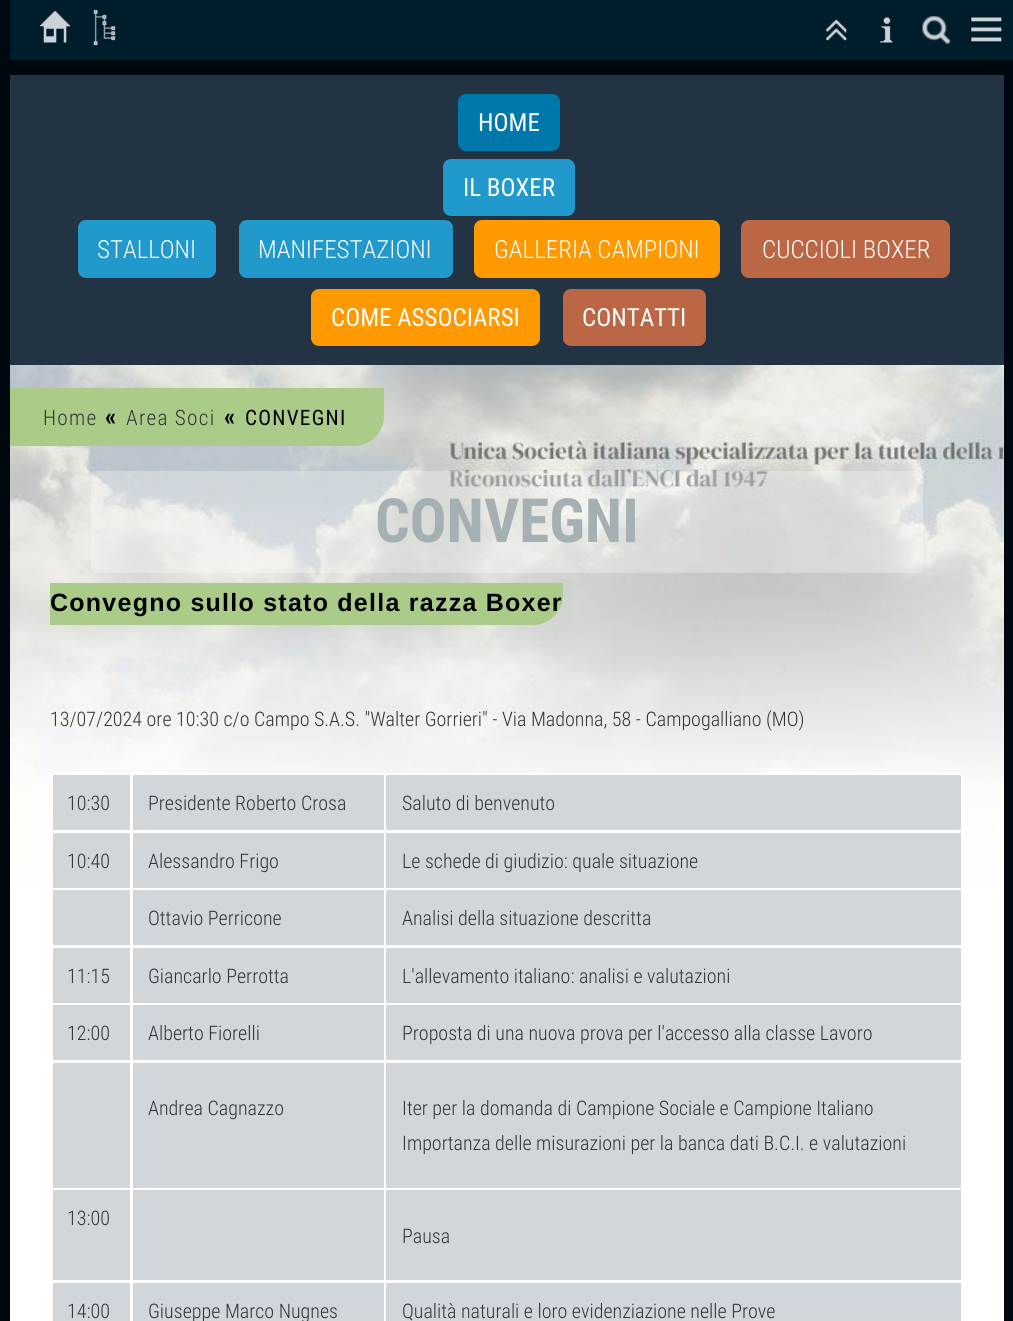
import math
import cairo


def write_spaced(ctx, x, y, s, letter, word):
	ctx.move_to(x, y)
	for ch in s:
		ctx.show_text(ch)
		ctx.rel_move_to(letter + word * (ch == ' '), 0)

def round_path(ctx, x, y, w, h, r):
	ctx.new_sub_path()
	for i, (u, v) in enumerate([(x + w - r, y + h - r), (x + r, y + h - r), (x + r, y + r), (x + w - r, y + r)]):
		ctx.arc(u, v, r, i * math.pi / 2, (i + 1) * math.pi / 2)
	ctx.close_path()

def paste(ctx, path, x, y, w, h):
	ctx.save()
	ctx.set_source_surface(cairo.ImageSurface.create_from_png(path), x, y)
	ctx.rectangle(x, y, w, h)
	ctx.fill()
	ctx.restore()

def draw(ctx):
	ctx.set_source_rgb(0, 0.035, 0.059)
	ctx.paint()
	ctx.set_source_rgb(0.133, 0.2, 0.267)
	ctx.rectangle(10, 75, 994, 290)
	ctx.fill()
	ctx.set_source_rgb(0, 0.467, 0.667)
	round_path(ctx, 458, 94, 102, 57, 8)
	ctx.fill()
	ctx.select_font_face('Roboto Condensed')
	ctx.set_font_size(25)
	ctx.set_source_rgb(1, 1, 1)
	ctx.move_to(478, 131)
	ctx.show_text('HOME')
	ctx.set_source_rgb(0.133, 0.6, 0.8)
	round_path(ctx, 443, 159, 132, 57, 8)
	ctx.fill()
	ctx.set_source_rgb(1, 1, 1)
	ctx.move_to(463, 196)
	ctx.show_text('IL BOXER')
	ctx.set_source_rgb(0.133, 0.6, 0.8)
	round_path(ctx, 78, 220, 138, 58, 8)
	ctx.fill()
	ctx.select_font_face('Roboto Condensed Light')
	ctx.set_source_rgb(1, 1, 1)
	ctx.move_to(97, 258)
	ctx.show_text('STALLONI')
	ctx.set_source_rgb(0.133, 0.6, 0.8)
	round_path(ctx, 239, 220, 214, 58, 8)
	ctx.fill()
	ctx.set_source_rgb(1, 1, 1)
	ctx.move_to(258, 258)
	ctx.show_text('MANIFESTAZIONI')
	ctx.set_source_rgb(1, 0.6, 0)
	round_path(ctx, 474, 220, 246, 58, 8)
	ctx.fill()
	ctx.set_source_rgb(1, 1, 1)
	ctx.move_to(494, 258)
	ctx.show_text('GALLERIA CAMPIONI')
	ctx.set_source_rgb(0.733, 0.4, 0.267)
	round_path(ctx, 741, 220, 209, 58, 8)
	ctx.fill()
	ctx.set_source_rgb(1, 1, 1)
	ctx.move_to(762, 258)
	ctx.show_text('CUCCIOLI BOXER')
	ctx.set_source_rgb(1, 0.6, 0)
	round_path(ctx, 311, 289, 229, 57, 8)
	ctx.fill()
	ctx.select_font_face('Roboto Condensed')
	ctx.set_source_rgb(1, 1, 1)
	ctx.move_to(331, 326)
	ctx.show_text('COME ASSOCIARSI')
	ctx.set_source_rgb(0.733, 0.4, 0.267)
	round_path(ctx, 563, 289, 143, 57, 8)
	ctx.fill()
	ctx.set_source_rgb(1, 1, 1)
	ctx.move_to(582, 326)
	ctx.show_text('CONTATTI')
	ctx.rectangle(10, 365, 994, 956)
	ctx.fill()
	paste(ctx, 'media/1.png', 10, 365, 994, 523)
	ctx.set_source_rgb(0, 0.114, 0.173)
	ctx.rectangle(10, 0, 1003, 60)
	ctx.fill()
	paste(ctx, 'media/2.png', 39, 11, 32, 32)
	paste(ctx, 'media/3.png', 93, 9, 23, 37)
	paste(ctx, 'media/4.png', 826, 19, 21, 22)
	paste(ctx, 'media/5.png', 879, 17, 14, 26)
	paste(ctx, 'media/6.png', 922, 16, 29, 28)
	paste(ctx, 'media/7.png', 971, 17, 31, 25)
	ctx.set_source_rgb(0.667, 0.8, 0.533)
	ctx.new_path()
	ctx.move_to(10, 388)
	ctx.line_to(384, 388)
	ctx.line_to(384, 416)
	ctx.curve_to(384, 432.5, 370.5, 446, 354, 446)
	ctx.line_to(10, 446)
	ctx.close_path()
	ctx.fill()
	ctx.select_font_face('Roboto Condensed Light')
	ctx.set_font_size(21.25)
	ctx.set_source_rgb(0.2, 0.2, 0.2)
	write_spaced(ctx, 43, 425, 'Home', 1.25, 0)
	ctx.select_font_face('Roboto Condensed', cairo.FONT_SLANT_NORMAL, cairo.FONT_WEIGHT_BOLD)
	ctx.set_font_size(25)
	ctx.set_source_rgb(0, 0, 0)
	write_spaced(ctx, 105, 425, '«', 1.25, 0)
	ctx.select_font_face('Roboto Condensed Light')
	ctx.set_font_size(21.25)
	ctx.set_source_rgb(0.2, 0.2, 0.2)
	write_spaced(ctx, 126, 425, 'Area Soci', 1.25, 0)
	ctx.select_font_face('Roboto Condensed', cairo.FONT_SLANT_NORMAL, cairo.FONT_WEIGHT_BOLD)
	ctx.set_font_size(25)
	ctx.set_source_rgb(0, 0, 0)
	write_spaced(ctx, 224, 425, '«', 1.25, 0)
	ctx.select_font_face('Roboto Condensed')
	ctx.set_font_size(21.25)
	write_spaced(ctx, 245, 425, 'CONVEGNI', 1.25, 0)
	ctx.set_source_rgba(1, 1, 1, 0.3)
	round_path(ctx, 91, 471, 832, 102, 6)
	ctx.fill()
	ctx.select_font_face('Roboto Condensed', cairo.FONT_SLANT_NORMAL, cairo.FONT_WEIGHT_BOLD)
	ctx.set_font_size(61)
	ctx.set_source_rgb(0.647, 0.69, 0.698)
	ctx.move_to(375, 542)
	ctx.show_text('CONVEGNI')
	ctx.set_source_rgb(0.667, 0.8, 0.533)
	ctx.new_path()
	ctx.move_to(50, 583)
	ctx.line_to(563, 583)
	ctx.line_to(563, 595)
	ctx.curve_to(563, 611.5, 549.5, 625, 533, 625)
	ctx.line_to(50, 625)
	ctx.close_path()
	ctx.fill()
	ctx.select_font_face('Liberation Sans', cairo.FONT_SLANT_NORMAL, cairo.FONT_WEIGHT_BOLD)
	ctx.set_font_size(25)
	ctx.set_source_rgb(0, 0, 0)
	write_spaced(ctx, 50, 611, 'Convegno sullo stato della razza Boxer', 1.25, 0)
	ctx.select_font_face('Roboto Condensed Light')
	ctx.set_font_size(20)
	ctx.set_source_rgb(0.2, 0.2, 0.2)
	ctx.move_to(50, 726)
	ctx.show_text('13/07/2024 ore 10:30 c/o Campo S.A.S. "Walter Gorrieri" - Via Madonna, 58 - Campogalliano (MO)')
	ctx.set_source_rgb(1, 1, 1)
	ctx.rectangle(50, 773, 914, 115)
	ctx.fill()
	ctx.set_source_rgb(0.816, 0.839, 0.851)
	ctx.rectangle(53, 775, 77, 55)
	ctx.fill()
	ctx.set_source_rgb(0.2, 0.2, 0.2)
	ctx.move_to(67, 810)
	ctx.show_text('10:30')
	ctx.set_source_rgb(0.816, 0.839, 0.851)
	ctx.rectangle(133, 775, 251, 55)
	ctx.fill()
	ctx.set_source_rgb(0.2, 0.2, 0.2)
	ctx.move_to(148, 810)
	ctx.show_text('Presidente Roberto Crosa')
	ctx.set_source_rgb(0.816, 0.839, 0.851)
	ctx.rectangle(386, 775, 575, 55)
	ctx.fill()
	ctx.set_source_rgb(0.2, 0.2, 0.2)
	ctx.move_to(402, 810)
	ctx.show_text('Saluto di benvenuto')
	ctx.set_source_rgb(0.816, 0.839, 0.851)
	ctx.rectangle(53, 833, 77, 55)
	ctx.fill()
	ctx.set_source_rgb(0.2, 0.2, 0.2)
	ctx.move_to(67, 868)
	ctx.show_text('10:40')
	ctx.set_source_rgb(0.816, 0.839, 0.851)
	ctx.rectangle(133, 833, 251, 55)
	ctx.fill()
	ctx.set_source_rgb(0.2, 0.2, 0.2)
	ctx.move_to(148, 868)
	ctx.show_text('Alessandro Frigo')
	ctx.set_source_rgb(0.816, 0.839, 0.851)
	ctx.rectangle(386, 833, 575, 55)
	ctx.fill()
	ctx.set_source_rgb(0.2, 0.2, 0.2)
	ctx.move_to(402, 868)
	ctx.show_text('Le schede di giudizio: quale situazione')
	ctx.set_source_rgb(0.816, 0.839, 0.851)
	ctx.rectangle(53, 890, 77, 55)
	ctx.fill()
	ctx.rectangle(133, 890, 251, 55)
	ctx.fill()
	ctx.set_source_rgb(0.2, 0.2, 0.2)
	ctx.move_to(148, 925)
	ctx.show_text('Ottavio Perricone')
	ctx.set_source_rgb(0.816, 0.839, 0.851)
	ctx.rectangle(386, 890, 575, 55)
	ctx.fill()
	ctx.set_source_rgb(0.2, 0.2, 0.2)
	ctx.move_to(402, 925)
	ctx.show_text('Analisi della situazione descritta')
	ctx.set_source_rgb(0.816, 0.839, 0.851)
	ctx.rectangle(53, 948, 77, 55)
	ctx.fill()
	ctx.set_source_rgb(0.2, 0.2, 0.2)
	ctx.move_to(67, 983)
	ctx.show_text('11:15')
	ctx.set_source_rgb(0.816, 0.839, 0.851)
	ctx.rectangle(133, 948, 251, 55)
	ctx.fill()
	ctx.set_source_rgb(0.2, 0.2, 0.2)
	ctx.move_to(148, 983)
	ctx.show_text('Giancarlo Perrotta')
	ctx.set_source_rgb(0.816, 0.839, 0.851)
	ctx.rectangle(386, 948, 575, 55)
	ctx.fill()
	ctx.set_source_rgb(0.2, 0.2, 0.2)
	ctx.move_to(402, 983)
	ctx.show_text('L\'allevamento italiano: analisi e valutazioni')
	ctx.set_source_rgb(0.816, 0.839, 0.851)
	ctx.rectangle(53, 1005, 77, 55)
	ctx.fill()
	ctx.set_source_rgb(0.2, 0.2, 0.2)
	ctx.move_to(67, 1040)
	ctx.show_text('12:00')
	ctx.set_source_rgb(0.816, 0.839, 0.851)
	ctx.rectangle(133, 1005, 251, 55)
	ctx.fill()
	ctx.set_source_rgb(0.2, 0.2, 0.2)
	ctx.move_to(148, 1040)
	ctx.show_text('Alberto Fiorelli')
	ctx.set_source_rgb(0.816, 0.839, 0.851)
	ctx.rectangle(386, 1005, 575, 55)
	ctx.fill()
	ctx.set_source_rgb(0.2, 0.2, 0.2)
	ctx.move_to(402, 1040)
	ctx.show_text('Proposta di una nuova prova per l\'accesso alla classe Lavoro')
	ctx.set_source_rgb(0.816, 0.839, 0.851)
	ctx.rectangle(53, 1063, 77, 125)
	ctx.fill()
	ctx.rectangle(133, 1063, 251, 125)
	ctx.fill()
	ctx.set_source_rgb(0.2, 0.2, 0.2)
	ctx.move_to(148, 1115)
	ctx.show_text('Andrea Cagnazzo')
	ctx.set_source_rgb(0.816, 0.839, 0.851)
	ctx.rectangle(386, 1063, 575, 125)
	ctx.fill()
	ctx.set_source_rgb(0.2, 0.2, 0.2)
	ctx.move_to(402, 1115)
	ctx.show_text('Iter per la domanda di Campione Sociale e Campione Italiano')
	ctx.move_to(402, 1150)
	ctx.show_text('Importanza delle misurazioni per la banca dati B.C.I. e valutazioni')
	ctx.set_source_rgb(0.816, 0.839, 0.851)
	ctx.rectangle(53, 1190, 77, 90)
	ctx.fill()
	ctx.set_source_rgb(0.2, 0.2, 0.2)
	ctx.move_to(67, 1225)
	ctx.show_text('13:00')
	ctx.set_source_rgb(0.816, 0.839, 0.851)
	ctx.rectangle(133, 1190, 251, 90)
	ctx.fill()
	ctx.rectangle(386, 1190, 575, 90)
	ctx.fill()
	ctx.set_source_rgb(0.2, 0.2, 0.2)
	ctx.move_to(402, 1243)
	ctx.show_text('Pausa')
	ctx.set_source_rgb(0.816, 0.839, 0.851)
	ctx.rectangle(53, 1283, 77, 38)
	ctx.fill()
	ctx.set_source_rgb(0.2, 0.2, 0.2)
	ctx.move_to(67, 1318)
	ctx.show_text('14:00')
	ctx.set_source_rgb(0.816, 0.839, 0.851)
	ctx.rectangle(133, 1283, 251, 38)
	ctx.fill()
	ctx.set_source_rgb(0.2, 0.2, 0.2)
	ctx.move_to(148, 1318)
	ctx.show_text('Giuseppe Marco Nugnes')
	ctx.set_source_rgb(0.816, 0.839, 0.851)
	ctx.rectangle(386, 1283, 575, 38)
	ctx.fill()
	ctx.set_source_rgb(0.2, 0.2, 0.2)
	ctx.move_to(402, 1318)
	ctx.show_text('Qualità naturali e loro evidenziazione nelle Prove')


surface = cairo.ImageSurface(cairo.FORMAT_RGB24, 1013, 1321)
ctx = cairo.Context(surface)
options = cairo.FontOptions()
options.set_hint_metrics(cairo.HINT_METRICS_OFF)
options.set_hint_style(cairo.HINT_STYLE_NONE)
ctx.set_font_options(options)
ctx.set_miter_limit(4)
draw(ctx)
surface.write_to_png('image.png')
